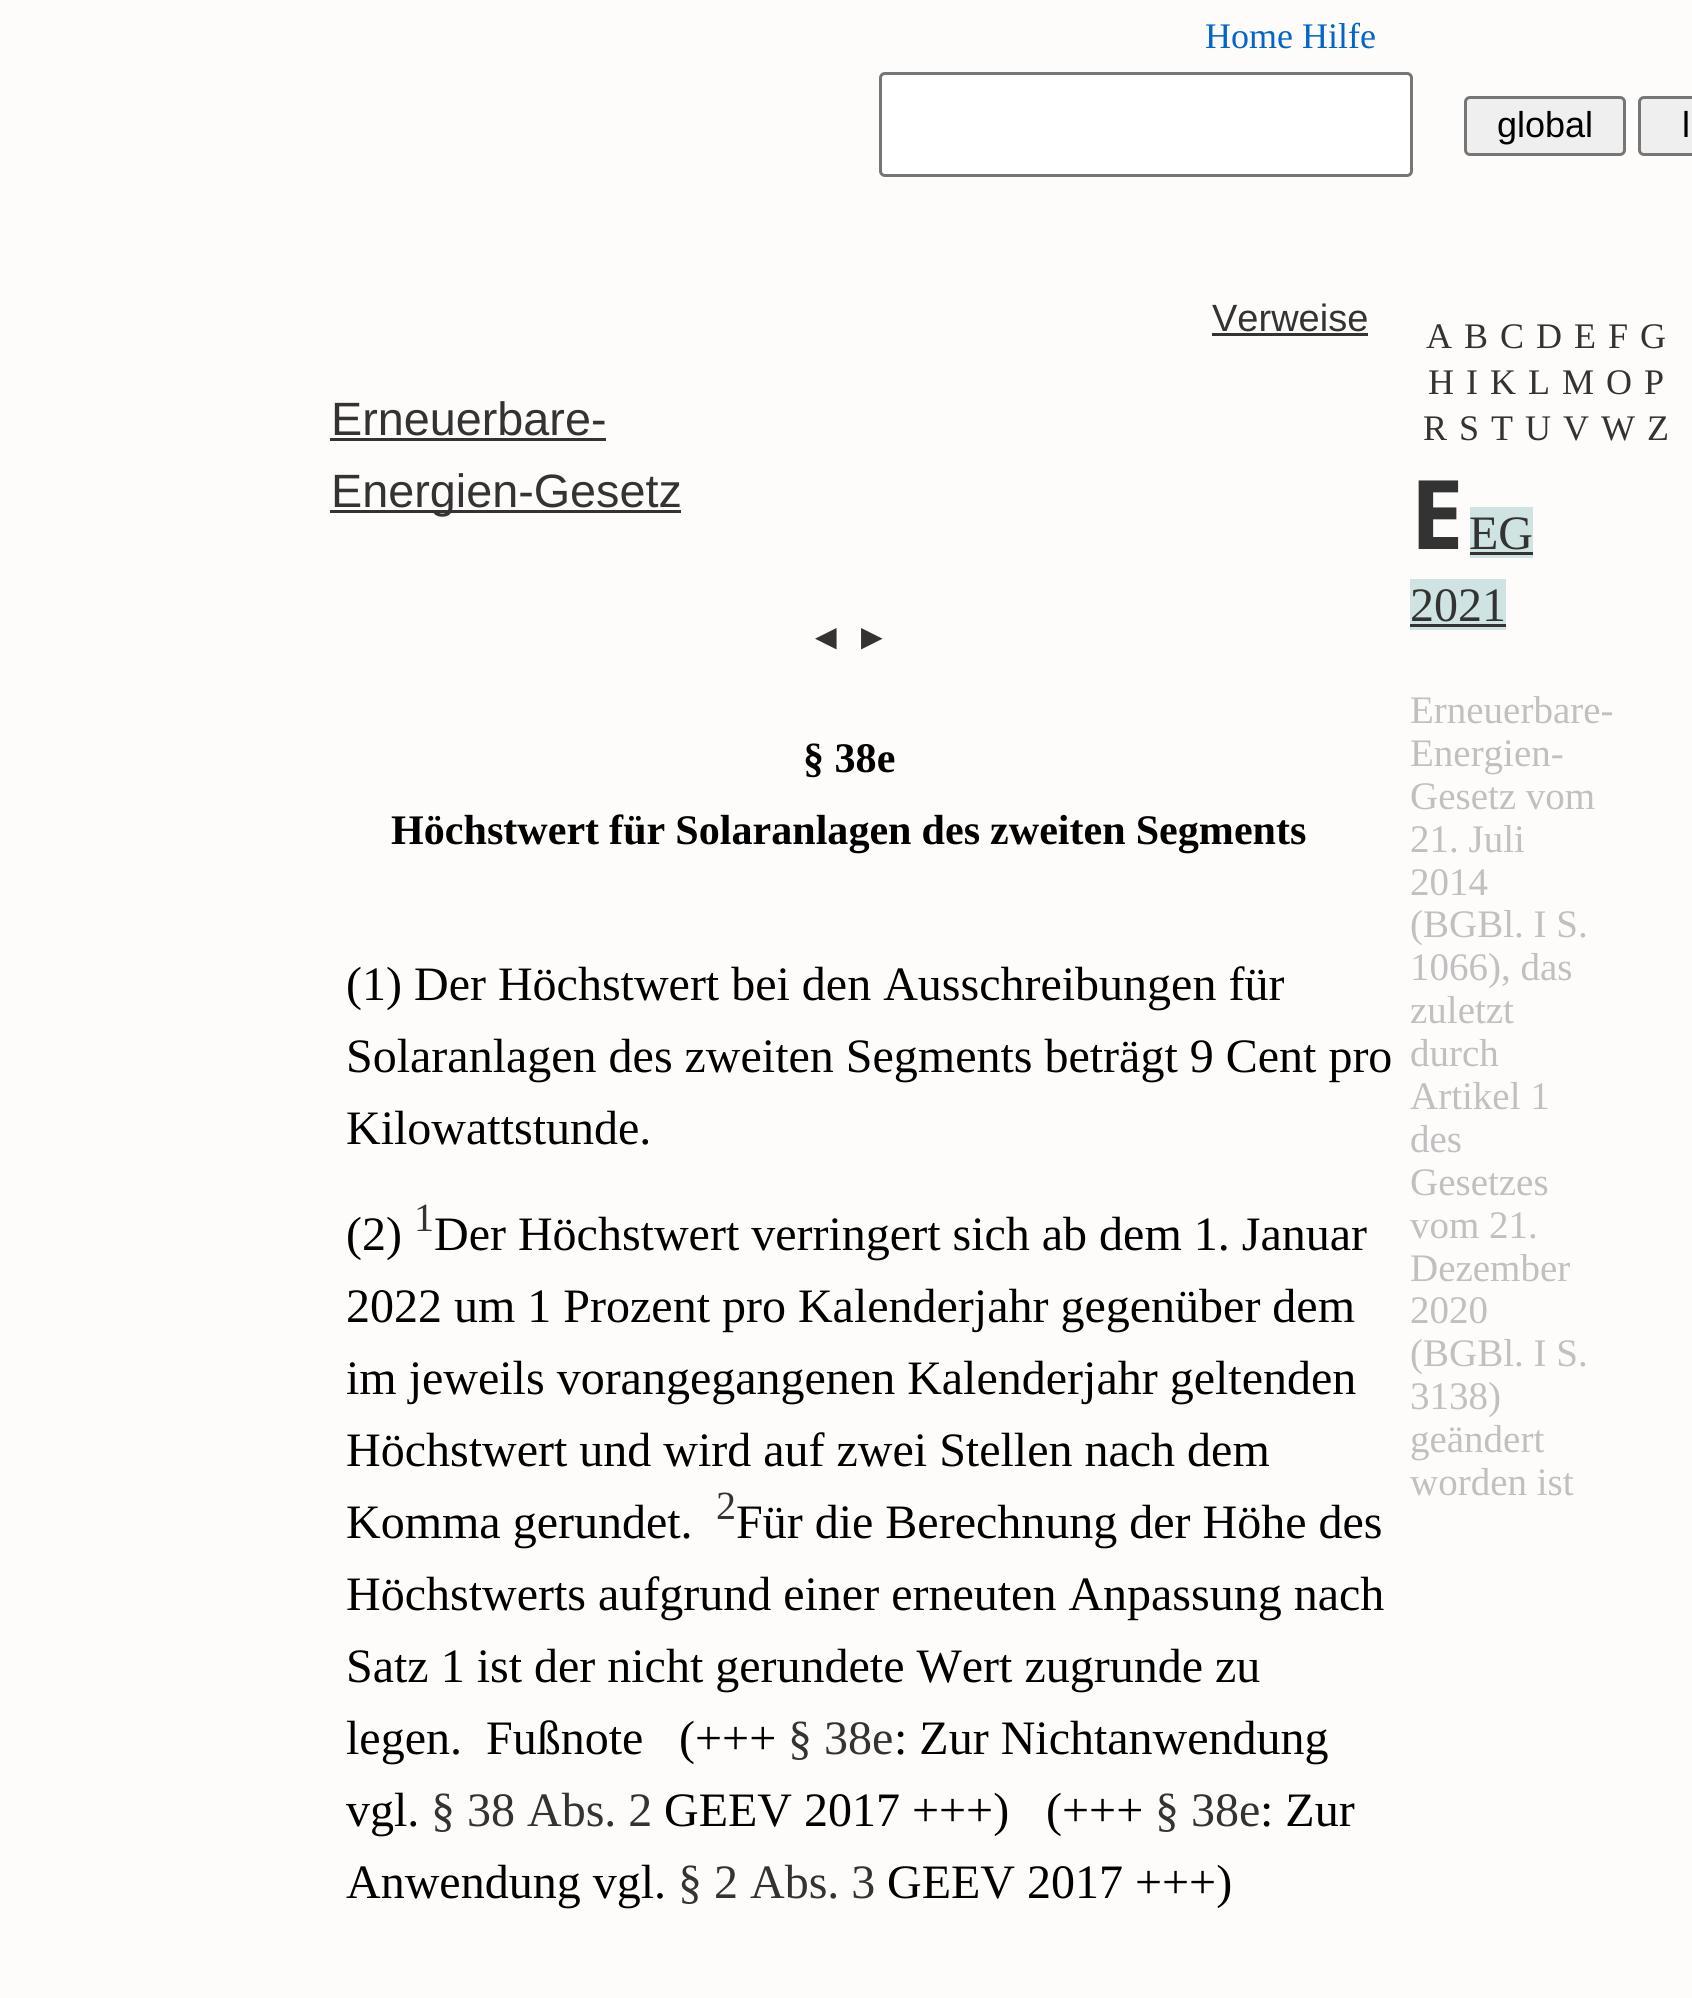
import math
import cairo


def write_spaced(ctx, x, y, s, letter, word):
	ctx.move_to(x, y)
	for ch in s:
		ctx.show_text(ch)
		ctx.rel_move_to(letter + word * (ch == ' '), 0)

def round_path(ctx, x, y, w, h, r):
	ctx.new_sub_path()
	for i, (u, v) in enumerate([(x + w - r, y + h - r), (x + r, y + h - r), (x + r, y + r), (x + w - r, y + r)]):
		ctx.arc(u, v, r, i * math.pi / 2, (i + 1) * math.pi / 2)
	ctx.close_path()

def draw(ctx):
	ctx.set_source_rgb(0.996, 0.988, 0.98)
	ctx.paint()
	ctx.select_font_face('Liberation Serif')
	ctx.set_font_size(36)
	ctx.set_source_rgb(0, 0.4, 0.8)
	ctx.move_to(1205, 48)
	ctx.show_text('Home Hilfe')
	ctx.set_source_rgb(1, 1, 1)
	round_path(ctx, 880.5, 73.5, 531, 102, 4.5)
	ctx.fill_preserve()
	ctx.set_source_rgb(0.463, 0.463, 0.463)
	ctx.set_line_width(3)
	ctx.stroke()
	ctx.set_source_rgb(0.937, 0.937, 0.937)
	round_path(ctx, 1465.5, 97.5, 159, 57, 4.5)
	ctx.fill_preserve()
	ctx.set_source_rgb(0.463, 0.463, 0.463)
	ctx.stroke()
	ctx.select_font_face('Liberation Sans')
	ctx.set_source_rgb(0, 0, 0)
	ctx.move_to(1497, 137)
	ctx.show_text('global')
	ctx.set_source_rgb(0.937, 0.937, 0.937)
	round_path(ctx, 1639.5, 97.5, 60, 57, 4.5)
	ctx.fill_preserve()
	ctx.set_source_rgb(0.463, 0.463, 0.463)
	ctx.stroke()
	ctx.set_source_rgb(0, 0, 0)
	ctx.move_to(1682, 137)
	ctx.show_text('l')
	ctx.select_font_face('Liberation Serif')
	ctx.set_source_rgb(0.2, 0.2, 0.2)
	for x, y, s in [
		(1426, 348, 'A'),
		(1464, 348, 'B'),
		(1500, 348, 'C'),
		(1536, 348, 'D'),
		(1574, 348, 'E'),
		(1608, 348, 'F'),
		(1640, 348, 'G'),
		(1428, 394, 'H'),
		(1466, 394, 'I'),
		(1490, 394, 'K'),
		(1528, 394, 'L'),
		(1562, 394, 'M'),
		(1606, 394, 'O'),
		(1644, 394, 'P'),
		(1423, 440, 'R'),
		(1459, 440, 'S'),
		(1491, 440, 'T'),
		(1525, 440, 'U'),
		(1563, 440, 'V'),
		(1601, 440, 'W'),
		(1647, 440, 'Z'),
	]:
		ctx.move_to(x, y)
		ctx.show_text(s)
	ctx.select_font_face('Liberation Sans')
	ctx.set_font_size(38)
	ctx.move_to(1212, 331)
	ctx.show_text('Verweise')
	ctx.rectangle(1212, 333, 156, 3)
	ctx.fill()
	ctx.set_font_size(46.75)
	ctx.move_to(331, 435)
	ctx.show_text('Erneuerbare-')
	ctx.rectangle(330, 438, 276, 3)
	ctx.fill()
	ctx.rectangle(330, 510, 351, 3)
	ctx.fill()
	ctx.move_to(331, 507)
	ctx.show_text('Energien-Gesetz')
	ctx.select_font_face('Liberation Serif')
	ctx.set_font_size(36)
	ctx.move_to(808, 649)
	ctx.show_text('◄')
	ctx.move_to(854, 649)
	ctx.show_text('►')
	ctx.select_font_face('Liberation Serif', cairo.FONT_SLANT_NORMAL, cairo.FONT_WEIGHT_BOLD)
	ctx.set_font_size(42.1)
	ctx.set_source_rgb(0, 0, 0)
	ctx.move_to(803, 772)
	ctx.show_text('§ 38e')
	write_spaced(ctx, 391, 844, 'Höchstwert für Solaranlagen des zweiten Segments', 0, -0.5)
	ctx.select_font_face('Noto Sans', cairo.FONT_SLANT_NORMAL, cairo.FONT_WEIGHT_BOLD)
	ctx.set_font_size(96)
	ctx.set_source_rgb(0.2, 0.2, 0.2)
	ctx.move_to(1410, 549)
	ctx.show_text('E')
	ctx.set_source_rgb(0.812, 0.89, 0.89)
	ctx.rectangle(1470, 507, 63, 51)
	ctx.fill()
	ctx.select_font_face('Liberation Serif')
	ctx.set_font_size(48)
	ctx.set_source_rgb(0.2, 0.2, 0.2)
	ctx.move_to(1469, 549)
	ctx.show_text('EG')
	ctx.rectangle(1470, 552, 63, 3)
	ctx.fill()
	ctx.set_source_rgb(0.812, 0.89, 0.89)
	ctx.rectangle(1410, 579, 96, 51)
	ctx.fill()
	ctx.set_source_rgb(0.2, 0.2, 0.2)
	ctx.move_to(1410, 621)
	ctx.show_text('2021')
	ctx.rectangle(1410, 624, 96, 3)
	ctx.fill()
	ctx.set_font_size(39)
	ctx.set_source_rgb(0.753, 0.753, 0.753)
	for x, y, s in [
		(1410, 723, 'Erneuerbare-'),
		(1410, 766, 'Energien-'),
		(1410, 809, 'Gesetz vom'),
		(1410, 852, '21. Juli'),
		(1410, 895, '2014'),
		(1410, 937, '(BGBl. I S.'),
		(1410, 980, '1066), das'),
		(1410, 1023, 'zuletzt'),
		(1410, 1066, 'durch'),
		(1410, 1109, 'Artikel 1'),
		(1410, 1152, 'des'),
		(1410, 1195, 'Gesetzes'),
		(1410, 1238, 'vom 21.'),
		(1410, 1281, 'Dezember'),
		(1410, 1323, '2020'),
		(1410, 1366, '(BGBl. I S.'),
		(1410, 1409, '3138)'),
		(1410, 1452, 'geändert'),
		(1410, 1495, 'worden ist'),
	]:
		ctx.move_to(x, y)
		ctx.show_text(s)
	ctx.set_font_size(48)
	ctx.set_source_rgb(0, 0, 0)
	for x, y, s in [
		(346, 1000, '(1) Der Höchstwert bei den Ausschreibungen für'),
		(346, 1072, 'Solaranlagen des zweiten Segments beträgt 9 Cent pro'),
		(346, 1144, 'Kilowattstunde.'),
		(346, 1250, '(2)'),
	]:
		ctx.move_to(x, y)
		ctx.show_text(s)
	ctx.set_font_size(40)
	ctx.set_source_rgb(0.2, 0.2, 0.2)
	ctx.move_to(414, 1231)
	ctx.show_text('1')
	ctx.set_font_size(48)
	ctx.set_source_rgb(0, 0, 0)
	for x, y, s in [
		(434, 1250, 'Der Höchstwert verringert sich ab dem 1. Januar'),
		(346, 1322, '2022 um 1 Prozent pro Kalenderjahr gegenüber dem'),
		(346, 1394, 'im jeweils vorangegangenen Kalenderjahr geltenden'),
		(346, 1466, 'Höchstwert und wird auf zwei Stellen nach dem'),
		(346, 1538, 'Komma gerundet.'),
	]:
		ctx.move_to(x, y)
		ctx.show_text(s)
	ctx.set_font_size(40)
	ctx.set_source_rgb(0.2, 0.2, 0.2)
	ctx.move_to(716, 1519)
	ctx.show_text('2')
	ctx.set_font_size(48)
	ctx.set_source_rgb(0, 0, 0)
	for x, y, s in [
		(736, 1538, 'Für die Berechnung der Höhe des'),
		(346, 1610, 'Höchstwerts aufgrund einer erneuten Anpassung nach'),
		(346, 1682, 'Satz 1 ist der nicht gerundete Wert zugrunde zu'),
		(346, 1754, 'legen.'),
		(486, 1754, 'Fußnote'),
		(679, 1754, '(+++'),
	]:
		ctx.move_to(x, y)
		ctx.show_text(s)
	ctx.set_source_rgb(0.2, 0.2, 0.2)
	ctx.move_to(788, 1754)
	ctx.show_text('§ 38e')
	ctx.set_source_rgb(0, 0, 0)
	ctx.move_to(894, 1754)
	ctx.show_text(': Zur Nichtanwendung')
	ctx.move_to(346, 1826)
	ctx.show_text('vgl.')
	ctx.set_source_rgb(0.2, 0.2, 0.2)
	ctx.move_to(431, 1826)
	ctx.show_text('§ 38 Abs. 2')
	ctx.set_source_rgb(0, 0, 0)
	ctx.move_to(664, 1826)
	ctx.show_text('GEEV 2017 +++)')
	ctx.move_to(1046, 1826)
	ctx.show_text('(+++')
	ctx.set_source_rgb(0.2, 0.2, 0.2)
	ctx.move_to(1155, 1826)
	ctx.show_text('§ 38e')
	ctx.set_source_rgb(0, 0, 0)
	ctx.move_to(1260, 1826)
	ctx.show_text(': Zur')
	ctx.move_to(346, 1898)
	ctx.show_text('Anwendung vgl.')
	ctx.set_source_rgb(0.2, 0.2, 0.2)
	ctx.move_to(678, 1898)
	ctx.show_text('§ 2 Abs. 3')
	ctx.set_source_rgb(0, 0, 0)
	ctx.move_to(887, 1898)
	ctx.show_text('GEEV 2017 +++)')


surface = cairo.ImageSurface(cairo.FORMAT_RGB24, 1692, 1998)
ctx = cairo.Context(surface)
options = cairo.FontOptions()
options.set_hint_metrics(cairo.HINT_METRICS_OFF)
options.set_hint_style(cairo.HINT_STYLE_NONE)
ctx.set_font_options(options)
ctx.set_miter_limit(4)
draw(ctx)
surface.write_to_png('image.png')
